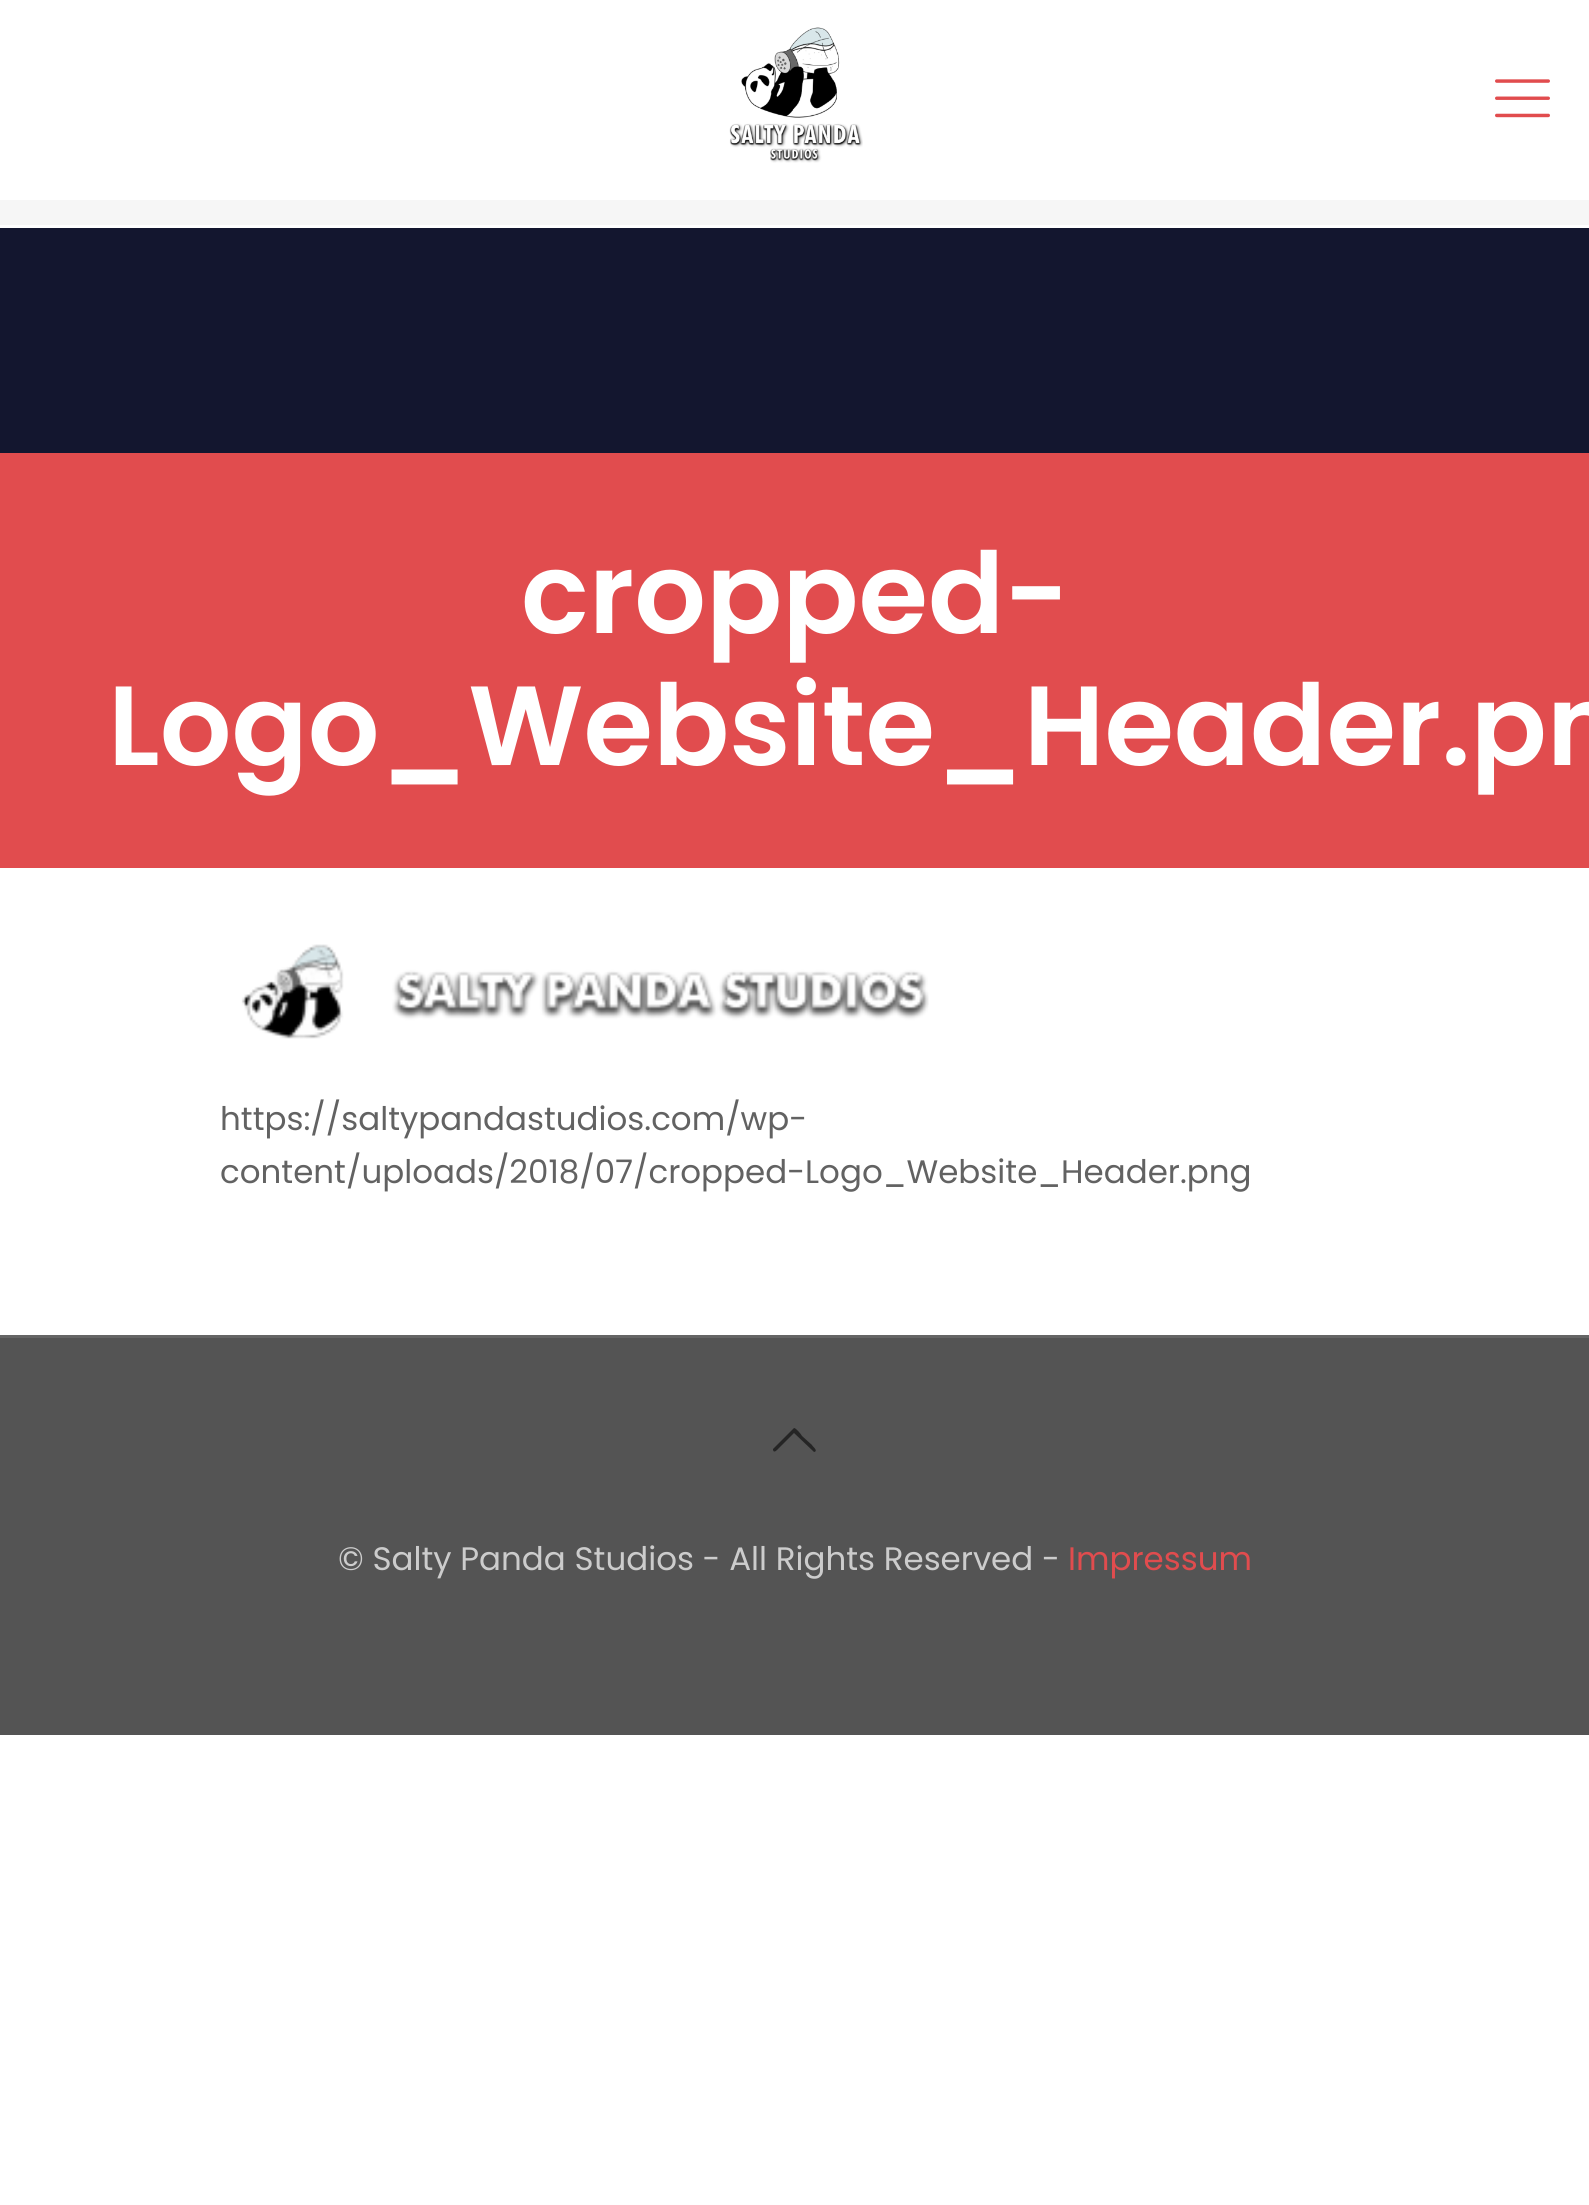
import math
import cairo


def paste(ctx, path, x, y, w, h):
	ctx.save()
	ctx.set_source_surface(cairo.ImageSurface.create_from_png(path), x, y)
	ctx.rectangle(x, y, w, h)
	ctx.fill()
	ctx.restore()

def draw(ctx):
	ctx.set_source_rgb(1, 1, 1)
	ctx.paint()
	ctx.set_source_rgb(0.075, 0.086, 0.184)
	ctx.rectangle(0, 228, 1589, 225)
	ctx.fill()
	paste(ctx, 'media/1.png', 729, 27, 134, 136)
	paste(ctx, 'media/2.png', 1495, 79, 55, 39)
	ctx.set_source_rgb(0.961, 0.961, 0.961)
	ctx.rectangle(0, 200, 1589, 25)
	ctx.fill()
	ctx.set_source_rgb(0.882, 0.298, 0.306)
	ctx.rectangle(0, 453, 1589, 415)
	ctx.fill()
	ctx.select_font_face('Poppins SemiBold')
	ctx.set_font_size(112.5)
	ctx.set_source_rgb(1, 1, 1)
	ctx.move_to(521, 633)
	ctx.show_text('cropped-')
	ctx.move_to(108, 765)
	ctx.show_text('Logo_Website_Header.pn')
	paste(ctx, 'media/3.png', 241, 944, 688, 95)
	ctx.select_font_face('Poppins')
	ctx.set_font_size(32.5)
	ctx.set_source_rgb(0.384, 0.384, 0.384)
	ctx.move_to(220, 1130)
	ctx.show_text('https://saltypandastudios.com/wp-')
	ctx.move_to(220, 1183)
	ctx.show_text('content/uploads/2018/07/cropped-Logo_Website_Header.png')
	ctx.set_source_rgb(0.329, 0.329, 0.329)
	ctx.rectangle(0, 1338, 1589, 397)
	ctx.fill()
	ctx.set_source_rgb(0.396, 0.396, 0.396)
	ctx.rectangle(0, 1335, 1589, 3)
	ctx.fill()
	ctx.set_source_rgb(0.145, 0.145, 0.145)
	ctx.new_path()
	ctx.move_to(813, 1451)
	ctx.line_to(794, 1433)
	ctx.line_to(779, 1448)
	ctx.curve_to(778, 1449, 774, 1454, 773, 1450)
	ctx.line_to(773, 1449)
	ctx.line_to(794, 1428)
	ctx.curve_to(796, 1428, 801, 1434, 802, 1436)
	ctx.line_to(812, 1445)
	ctx.curve_to(812, 1446, 819, 1451, 814, 1452)
	ctx.close_path()
	ctx.fill()
	ctx.set_source_rgb(0.8, 0.8, 0.8)
	ctx.move_to(338, 1570)
	ctx.show_text('© Salty Panda Studios - All Rights Reserved -')
	ctx.set_source_rgb(0.882, 0.298, 0.306)
	ctx.move_to(1068, 1570)
	ctx.show_text('Impressum')


surface = cairo.ImageSurface(cairo.FORMAT_RGB24, 1589, 2205)
ctx = cairo.Context(surface)
options = cairo.FontOptions()
options.set_hint_metrics(cairo.HINT_METRICS_OFF)
options.set_hint_style(cairo.HINT_STYLE_NONE)
ctx.set_font_options(options)
ctx.set_miter_limit(4)
draw(ctx)
surface.write_to_png('image.png')
